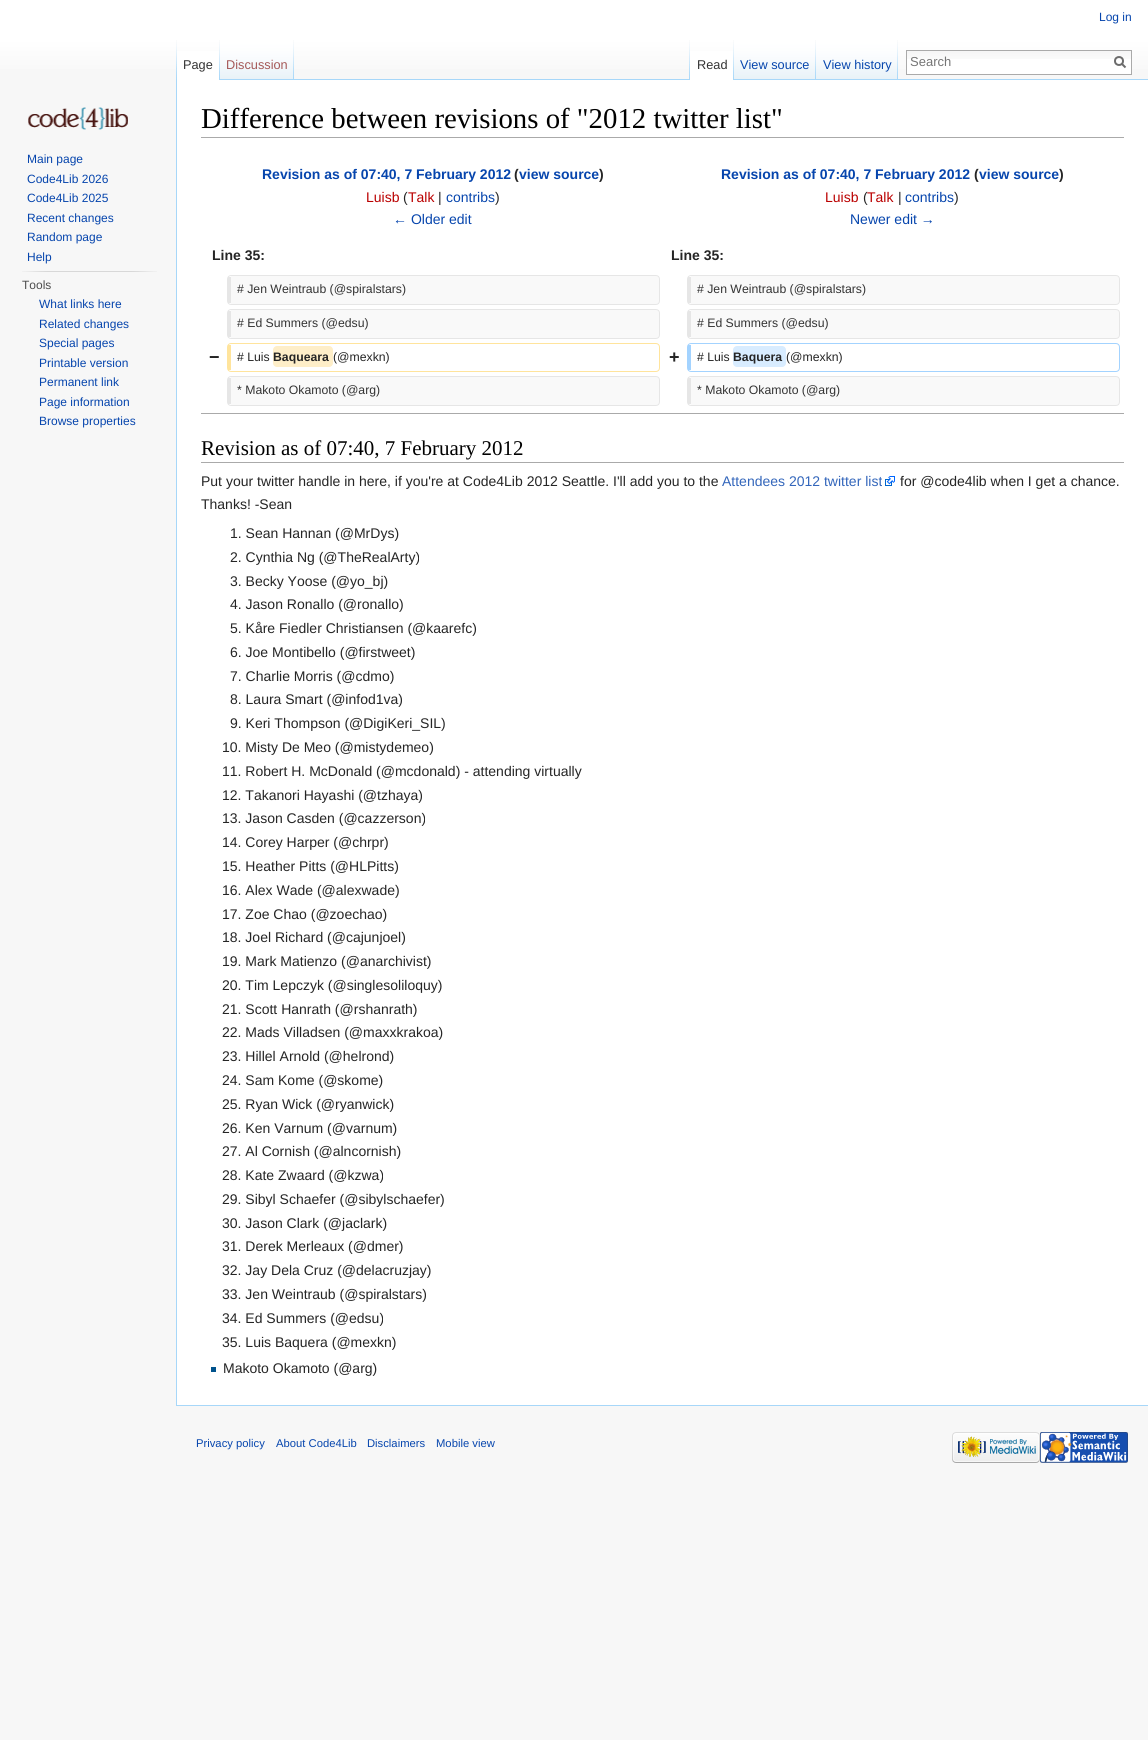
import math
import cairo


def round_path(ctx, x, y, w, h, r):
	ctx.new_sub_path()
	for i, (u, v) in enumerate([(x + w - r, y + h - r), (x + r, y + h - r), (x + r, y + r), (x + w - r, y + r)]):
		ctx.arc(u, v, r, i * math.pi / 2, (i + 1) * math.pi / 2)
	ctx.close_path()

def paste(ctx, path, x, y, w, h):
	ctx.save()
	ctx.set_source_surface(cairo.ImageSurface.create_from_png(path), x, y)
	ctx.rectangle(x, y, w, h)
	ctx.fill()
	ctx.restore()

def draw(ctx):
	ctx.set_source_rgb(0.965, 0.965, 0.965)
	ctx.paint()
	gradient = cairo.LinearGradient(574, 0, 574, 80)
	gradient.add_color_stop_rgba(0.5, 1, 1, 1, 1)
	gradient.add_color_stop_rgba(1, 0.965, 0.965, 0.965, 1)
	ctx.set_source(gradient)
	ctx.rectangle(0, 0, 1148, 69)
	ctx.fill()
	ctx.select_font_face('Liberation Sans')
	ctx.set_font_size(12)
	ctx.set_source_rgb(0.024, 0.271, 0.678)
	ctx.move_to(1099, 21)
	ctx.show_text('Log in')
	paste(ctx, 'media/1.png', 176, 40, 1, 39)
	ctx.set_source_rgb(1, 1, 1)
	ctx.rectangle(177, 51, 42, 29)
	ctx.fill()
	paste(ctx, 'media/2.png', 219, 40, 1, 40)
	ctx.set_font_size(12.75)
	ctx.set_source_rgb(0.2, 0.2, 0.2)
	ctx.move_to(183, 69)
	ctx.show_text('Page')
	paste(ctx, 'media/3.png', 220, 40, 74, 40)
	paste(ctx, 'media/4.png', 293, 40, 1, 39)
	ctx.set_source_rgb(0.647, 0.345, 0.345)
	ctx.move_to(226, 69)
	ctx.show_text('Discussion')
	paste(ctx, 'media/1.png', 689, 40, 1, 39)
	ctx.set_source_rgb(0.655, 0.843, 0.976)
	ctx.rectangle(294, 79, 854, 1)
	ctx.fill()
	ctx.set_source_rgb(1, 1, 1)
	ctx.rectangle(690, 51, 43, 29)
	ctx.fill()
	paste(ctx, 'media/2.png', 733, 40, 1, 40)
	ctx.set_source_rgb(0.2, 0.2, 0.2)
	ctx.move_to(697, 69)
	ctx.show_text('Read')
	paste(ctx, 'media/5.png', 734, 40, 82, 40)
	paste(ctx, 'media/4.png', 815, 40, 1, 39)
	ctx.set_source_rgb(0.024, 0.271, 0.678)
	ctx.move_to(740, 69)
	ctx.show_text('View source')
	paste(ctx, 'media/5.png', 816, 40, 82, 40)
	paste(ctx, 'media/4.png', 897, 40, 1, 39)
	ctx.move_to(823, 69)
	ctx.show_text('View history')
	ctx.set_source_rgb(1, 1, 1)
	ctx.rectangle(907, 59, 224, 15)
	ctx.fill()
	paste(ctx, 'media/6.png', 907, 51, 224, 8)
	ctx.rectangle(906.5, 50.5, 225, 24)
	ctx.set_source_rgb(0.667, 0.667, 0.667)
	ctx.set_line_width(1)
	ctx.stroke()
	ctx.set_font_size(13)
	ctx.set_source_rgb(0.459, 0.459, 0.459)
	ctx.move_to(910, 66)
	ctx.show_text('Search')
	ctx.new_path()
	ctx.move_to(1125.5, 67.5)
	ctx.line_to(1121.5, 63.5)
	ctx.set_source_rgb(0.424, 0.424, 0.424)
	ctx.set_line_width(2)
	ctx.stroke()
	ctx.arc(1119, 61, 4, 0, 2 * math.pi)
	ctx.stroke()
	paste(ctx, 'media/7.png', 28, 107, 100, 23)
	ctx.set_font_size(12)
	ctx.set_source_rgb(0.024, 0.271, 0.678)
	for x, y, s in [
		(27, 163, 'Main page'),
		(27, 183, 'Code4Lib 2026'),
		(27, 202, 'Code4Lib 2025'),
		(27, 222, 'Recent changes'),
		(27, 241, 'Random page'),
		(27, 261, 'Help'),
	]:
		ctx.move_to(x, y)
		ctx.show_text(s)
	paste(ctx, 'media/8.png', 22, 271, 135, 1)
	ctx.set_source_rgb(0.302, 0.302, 0.302)
	ctx.move_to(22, 289)
	ctx.show_text('Tools')
	ctx.set_source_rgb(0.024, 0.271, 0.678)
	for x, y, s in [
		(39, 308, 'What links here'),
		(39, 328, 'Related changes'),
		(39, 347, 'Special pages'),
		(39, 367, 'Printable version'),
		(39, 386, 'Permanent link'),
		(39, 406, 'Page information'),
		(39, 425, 'Browse properties'),
	]:
		ctx.move_to(x, y)
		ctx.show_text(s)
	ctx.set_source_rgb(1, 1, 1)
	ctx.rectangle(177, 80, 971, 1325)
	ctx.fill()
	ctx.set_source_rgb(0.655, 0.843, 0.976)
	ctx.rectangle(176, 1405, 972, 1)
	ctx.rectangle(176, 79, 1, 1327)
	ctx.fill()
	ctx.set_source_rgb(0.667, 0.667, 0.667)
	ctx.rectangle(201, 137, 923, 1)
	ctx.fill()
	ctx.select_font_face('Liberation Serif')
	ctx.set_font_size(28.8)
	ctx.set_source_rgb(0, 0, 0)
	ctx.move_to(201, 128)
	ctx.show_text('Difference between revisions of "2012 twitter list"')
	ctx.select_font_face('Liberation Sans', cairo.FONT_SLANT_NORMAL, cairo.FONT_WEIGHT_BOLD)
	ctx.set_font_size(14)
	ctx.set_source_rgb(0.024, 0.271, 0.678)
	ctx.move_to(262, 179)
	ctx.show_text('Revision as of 07:40, 7 February 2012')
	ctx.set_source_rgb(0.145, 0.145, 0.145)
	ctx.move_to(514, 179)
	ctx.show_text('(')
	ctx.set_source_rgb(0.024, 0.271, 0.678)
	ctx.move_to(519, 179)
	ctx.show_text('view source')
	ctx.set_source_rgb(0.145, 0.145, 0.145)
	ctx.move_to(599, 179)
	ctx.show_text(')')
	ctx.select_font_face('Liberation Sans')
	ctx.set_source_rgb(0.729, 0, 0)
	ctx.move_to(366, 202)
	ctx.show_text('Luisb')
	ctx.set_source_rgb(0.145, 0.145, 0.145)
	ctx.move_to(403, 202)
	ctx.show_text('(')
	ctx.set_source_rgb(0.729, 0, 0)
	ctx.move_to(408, 202)
	ctx.show_text('Talk')
	ctx.set_source_rgb(0.145, 0.145, 0.145)
	ctx.move_to(438, 202)
	ctx.show_text('|')
	ctx.set_source_rgb(0.024, 0.271, 0.678)
	ctx.move_to(446, 202)
	ctx.show_text('contribs')
	ctx.set_source_rgb(0.145, 0.145, 0.145)
	ctx.move_to(495, 202)
	ctx.show_text(')')
	ctx.set_source_rgb(0.024, 0.271, 0.678)
	ctx.move_to(393, 224)
	ctx.show_text('← Older edit')
	ctx.select_font_face('Liberation Sans', cairo.FONT_SLANT_NORMAL, cairo.FONT_WEIGHT_BOLD)
	ctx.move_to(721, 179)
	ctx.show_text('Revision as of 07:40, 7 February 2012')
	ctx.set_source_rgb(0.145, 0.145, 0.145)
	ctx.move_to(974, 179)
	ctx.show_text('(')
	ctx.set_source_rgb(0.024, 0.271, 0.678)
	ctx.move_to(979, 179)
	ctx.show_text('view source')
	ctx.set_source_rgb(0.145, 0.145, 0.145)
	ctx.move_to(1059, 179)
	ctx.show_text(')')
	ctx.select_font_face('Liberation Sans')
	ctx.set_source_rgb(0.729, 0, 0)
	ctx.move_to(825, 202)
	ctx.show_text('Luisb')
	ctx.set_source_rgb(0.145, 0.145, 0.145)
	ctx.move_to(863, 202)
	ctx.show_text('(')
	ctx.set_source_rgb(0.729, 0, 0)
	ctx.move_to(867, 202)
	ctx.show_text('Talk')
	ctx.set_source_rgb(0.145, 0.145, 0.145)
	ctx.move_to(898, 202)
	ctx.show_text('|')
	ctx.set_source_rgb(0.024, 0.271, 0.678)
	ctx.move_to(905, 202)
	ctx.show_text('contribs')
	ctx.set_source_rgb(0.145, 0.145, 0.145)
	ctx.move_to(954, 202)
	ctx.show_text(')')
	ctx.set_source_rgb(0.024, 0.271, 0.678)
	ctx.move_to(850, 224)
	ctx.show_text('Newer edit →')
	ctx.select_font_face('Liberation Sans', cairo.FONT_SLANT_NORMAL, cairo.FONT_WEIGHT_BOLD)
	ctx.set_source_rgb(0.145, 0.145, 0.145)
	ctx.move_to(212, 260)
	ctx.show_text('Line 35:')
	ctx.move_to(671, 260)
	ctx.show_text('Line 35:')
	ctx.set_source_rgb(0.976, 0.976, 0.976)
	ctx.new_path()
	ctx.move_to(231, 276)
	ctx.line_to(656, 276)
	ctx.curve_to(658, 276, 659, 277, 659, 279)
	ctx.line_to(659, 301)
	ctx.curve_to(659, 303, 658, 304, 656, 304)
	ctx.line_to(231, 304)
	ctx.close_path()
	ctx.fill()
	round_path(ctx, 227.5, 275.5, 432, 29, 3.5)
	ctx.set_source_rgb(0.902, 0.902, 0.902)
	ctx.set_line_width(1)
	ctx.stroke()
	ctx.rectangle(228, 277, 3, 26)
	ctx.fill()
	ctx.select_font_face('Liberation Sans')
	ctx.set_font_size(12.25)
	ctx.set_source_rgb(0.2, 0.2, 0.2)
	ctx.move_to(237, 293)
	ctx.show_text('# Jen Weintraub (@spiralstars)')
	ctx.set_source_rgb(0.976, 0.976, 0.976)
	ctx.new_path()
	ctx.move_to(691, 276)
	ctx.line_to(1116, 276)
	ctx.curve_to(1118, 276, 1119, 277, 1119, 279)
	ctx.line_to(1119, 301)
	ctx.curve_to(1119, 303, 1118, 304, 1116, 304)
	ctx.line_to(691, 304)
	ctx.close_path()
	ctx.fill()
	round_path(ctx, 687.5, 275.5, 432, 29, 3.5)
	ctx.set_source_rgb(0.902, 0.902, 0.902)
	ctx.stroke()
	ctx.rectangle(688, 277, 3, 26)
	ctx.fill()
	ctx.set_source_rgb(0.2, 0.2, 0.2)
	ctx.move_to(697, 293)
	ctx.show_text('# Jen Weintraub (@spiralstars)')
	ctx.set_source_rgb(0.976, 0.976, 0.976)
	ctx.new_path()
	ctx.move_to(231, 310)
	ctx.line_to(656, 310)
	ctx.curve_to(658, 310, 659, 311, 659, 313)
	ctx.line_to(659, 335)
	ctx.curve_to(659, 337, 658, 338, 656, 338)
	ctx.line_to(231, 338)
	ctx.close_path()
	ctx.fill()
	round_path(ctx, 227.5, 309.5, 432, 29, 3.5)
	ctx.set_source_rgb(0.902, 0.902, 0.902)
	ctx.stroke()
	ctx.rectangle(228, 311, 3, 26)
	ctx.fill()
	ctx.set_source_rgb(0.2, 0.2, 0.2)
	ctx.move_to(237, 327)
	ctx.show_text('# Ed Summers (@edsu)')
	ctx.set_source_rgb(0.976, 0.976, 0.976)
	ctx.new_path()
	ctx.move_to(691, 310)
	ctx.line_to(1116, 310)
	ctx.curve_to(1118, 310, 1119, 311, 1119, 313)
	ctx.line_to(1119, 335)
	ctx.curve_to(1119, 337, 1118, 338, 1116, 338)
	ctx.line_to(691, 338)
	ctx.close_path()
	ctx.fill()
	round_path(ctx, 687.5, 309.5, 432, 29, 3.5)
	ctx.set_source_rgb(0.902, 0.902, 0.902)
	ctx.stroke()
	ctx.rectangle(688, 311, 3, 26)
	ctx.fill()
	ctx.set_source_rgb(0.2, 0.2, 0.2)
	ctx.move_to(697, 327)
	ctx.show_text('# Ed Summers (@edsu)')
	ctx.select_font_face('Liberation Sans', cairo.FONT_SLANT_NORMAL, cairo.FONT_WEIGHT_BOLD)
	ctx.set_font_size(18)
	ctx.set_source_rgb(0.145, 0.145, 0.145)
	ctx.move_to(209, 363)
	ctx.show_text('−')
	round_path(ctx, 227.5, 343.5, 432, 28, 3.5)
	ctx.set_source_rgb(1, 0.894, 0.612)
	ctx.stroke()
	ctx.rectangle(228, 345, 3, 25)
	ctx.fill()
	ctx.select_font_face('Liberation Sans')
	ctx.set_font_size(12.25)
	ctx.set_source_rgb(0.145, 0.145, 0.145)
	ctx.move_to(237, 361)
	ctx.show_text('# Luis')
	ctx.set_source_rgb(0.996, 0.933, 0.784)
	round_path(ctx, 273, 346, 60, 21, 4)
	ctx.fill()
	ctx.select_font_face('Liberation Sans', cairo.FONT_SLANT_NORMAL, cairo.FONT_WEIGHT_BOLD)
	ctx.set_source_rgb(0.145, 0.145, 0.145)
	ctx.move_to(273, 361)
	ctx.show_text('Baqueara')
	ctx.select_font_face('Liberation Sans')
	ctx.move_to(333, 361)
	ctx.show_text('(@mexkn)')
	ctx.select_font_face('Liberation Sans', cairo.FONT_SLANT_NORMAL, cairo.FONT_WEIGHT_BOLD)
	ctx.set_font_size(18)
	ctx.move_to(669, 363)
	ctx.show_text('+')
	round_path(ctx, 687.5, 343.5, 432, 28, 3.5)
	ctx.set_source_rgb(0.639, 0.827, 1)
	ctx.stroke()
	ctx.rectangle(688, 345, 3, 25)
	ctx.fill()
	ctx.select_font_face('Liberation Sans')
	ctx.set_font_size(12.25)
	ctx.set_source_rgb(0.145, 0.145, 0.145)
	ctx.move_to(697, 361)
	ctx.show_text('# Luis')
	ctx.set_source_rgb(0.847, 0.925, 1)
	round_path(ctx, 733, 346, 53, 21, 4)
	ctx.fill()
	ctx.select_font_face('Liberation Sans', cairo.FONT_SLANT_NORMAL, cairo.FONT_WEIGHT_BOLD)
	ctx.set_source_rgb(0.145, 0.145, 0.145)
	ctx.move_to(733, 361)
	ctx.show_text('Baquera')
	ctx.select_font_face('Liberation Sans')
	ctx.move_to(786, 361)
	ctx.show_text('(@mexkn)')
	ctx.set_source_rgb(0.976, 0.976, 0.976)
	ctx.new_path()
	ctx.move_to(231, 377)
	ctx.line_to(656, 377)
	ctx.curve_to(658, 377, 659, 378, 659, 380)
	ctx.line_to(659, 402)
	ctx.curve_to(659, 404, 658, 405, 656, 405)
	ctx.line_to(231, 405)
	ctx.close_path()
	ctx.fill()
	round_path(ctx, 227.5, 376.5, 432, 29, 3.5)
	ctx.set_source_rgb(0.902, 0.902, 0.902)
	ctx.stroke()
	ctx.rectangle(228, 378, 3, 26)
	ctx.fill()
	ctx.set_source_rgb(0.2, 0.2, 0.2)
	ctx.move_to(237, 394)
	ctx.show_text('* Makoto Okamoto (@arg)')
	ctx.set_source_rgb(0.976, 0.976, 0.976)
	ctx.new_path()
	ctx.move_to(691, 377)
	ctx.line_to(1116, 377)
	ctx.curve_to(1118, 377, 1119, 378, 1119, 380)
	ctx.line_to(1119, 402)
	ctx.curve_to(1119, 404, 1118, 405, 1116, 405)
	ctx.line_to(691, 405)
	ctx.close_path()
	ctx.fill()
	round_path(ctx, 687.5, 376.5, 432, 29, 3.5)
	ctx.set_source_rgb(0.902, 0.902, 0.902)
	ctx.stroke()
	ctx.rectangle(688, 378, 3, 26)
	ctx.fill()
	ctx.set_source_rgb(0.2, 0.2, 0.2)
	ctx.move_to(697, 394)
	ctx.show_text('* Makoto Okamoto (@arg)')
	ctx.set_source_rgb(0.667, 0.667, 0.667)
	ctx.rectangle(201, 413, 923, 1)
	ctx.fill()
	ctx.rectangle(201, 462, 923, 1)
	ctx.fill()
	ctx.select_font_face('Liberation Serif')
	ctx.set_font_size(21)
	ctx.set_source_rgb(0, 0, 0)
	ctx.move_to(201, 455)
	ctx.show_text('Revision as of 07:40, 7 February 2012')
	ctx.select_font_face('Liberation Sans')
	ctx.set_font_size(14)
	ctx.set_source_rgb(0.145, 0.145, 0.145)
	ctx.move_to(201, 486)
	ctx.show_text('Put your twitter handle in here, if you\'re at Code4Lib 2012 Seattle. I\'ll add you to the')
	ctx.set_source_rgb(0.2, 0.4, 0.733)
	ctx.move_to(722, 486)
	ctx.show_text('Attendees 2012 twitter list')
	paste(ctx, 'media/9.png', 885, 476, 10, 10)
	ctx.set_source_rgb(0.145, 0.145, 0.145)
	for x, y, s in [
		(900, 486, 'for @code4lib when I get a chance.'),
		(201, 509, 'Thanks! -Sean'),
		(230, 538, '1. Sean Hannan (@MrDys)'),
		(230, 562, '2. Cynthia Ng (@TheRealArty)'),
		(230, 586, '3. Becky Yoose (@yo_bj)'),
		(230, 609, '4. Jason Ronallo (@ronallo)'),
		(230, 633, '5. Kåre Fiedler Christiansen (@kaarefc)'),
		(230, 657, '6. Joe Montibello (@firstweet)'),
		(230, 681, '7. Charlie Morris (@cdmo)'),
		(230, 704, '8. Laura Smart (@infod1va)'),
		(230, 728, '9. Keri Thompson (@DigiKeri_SIL)'),
		(222, 752, '10. Misty De Meo (@mistydemeo)'),
		(222, 776, '11. Robert H. McDonald (@mcdonald) - attending virtually'),
		(222, 800, '12. Takanori Hayashi (@tzhaya)'),
		(222, 823, '13. Jason Casden (@cazzerson)'),
		(222, 847, '14. Corey Harper (@chrpr)'),
		(222, 871, '15. Heather Pitts (@HLPitts)'),
		(222, 895, '16. Alex Wade (@alexwade)'),
		(222, 919, '17. Zoe Chao (@zoechao)'),
		(222, 942, '18. Joel Richard (@cajunjoel)'),
		(222, 966, '19. Mark Matienzo (@anarchivist)'),
		(222, 990, '20. Tim Lepczyk (@singlesoliloquy)'),
		(222, 1014, '21. Scott Hanrath (@rshanrath)'),
		(222, 1037, '22. Mads Villadsen (@maxxkrakoa)'),
		(222, 1061, '23. Hillel Arnold (@helrond)'),
		(222, 1085, '24. Sam Kome (@skome)'),
		(222, 1109, '25. Ryan Wick (@ryanwick)'),
		(222, 1133, '26. Ken Varnum (@varnum)'),
		(222, 1156, '27. Al Cornish (@alncornish)'),
		(222, 1180, '28. Kate Zwaard (@kzwa)'),
		(222, 1204, '29. Sibyl Schaefer (@sibylschaefer)'),
		(222, 1228, '30. Jason Clark (@jaclark)'),
		(222, 1251, '31. Derek Merleaux (@dmer)'),
		(222, 1275, '32. Jay Dela Cruz (@delacruzjay)'),
		(222, 1299, '33. Jen Weintraub (@spiralstars)'),
		(222, 1323, '34. Ed Summers (@edsu)'),
		(222, 1347, '35. Luis Baquera (@mexkn)'),
	]:
		ctx.move_to(x, y)
		ctx.show_text(s)
	ctx.set_source_rgb(0, 0.322, 0.549)
	ctx.rectangle(211, 1367, 5, 5)
	ctx.fill()
	ctx.set_source_rgb(0.145, 0.145, 0.145)
	ctx.move_to(223, 1373)
	ctx.show_text('Makoto Okamoto (@arg)')
	ctx.set_font_size(11.25)
	ctx.set_source_rgb(0.024, 0.271, 0.678)
	for x, y, s in [
		(196, 1447, 'Privacy policy'),
		(276, 1447, 'About Code4Lib'),
		(367, 1447, 'Disclaimers'),
		(436, 1447, 'Mobile view'),
	]:
		ctx.move_to(x, y)
		ctx.show_text(s)
	paste(ctx, 'media/10.png', 952, 1432, 88, 31)
	paste(ctx, 'media/11.png', 1040, 1432, 88, 31)


surface = cairo.ImageSurface(cairo.FORMAT_RGB24, 1148, 1740)
ctx = cairo.Context(surface)
options = cairo.FontOptions()
options.set_hint_metrics(cairo.HINT_METRICS_OFF)
options.set_hint_style(cairo.HINT_STYLE_NONE)
ctx.set_font_options(options)
ctx.set_miter_limit(4)
draw(ctx)
surface.write_to_png('image.png')
